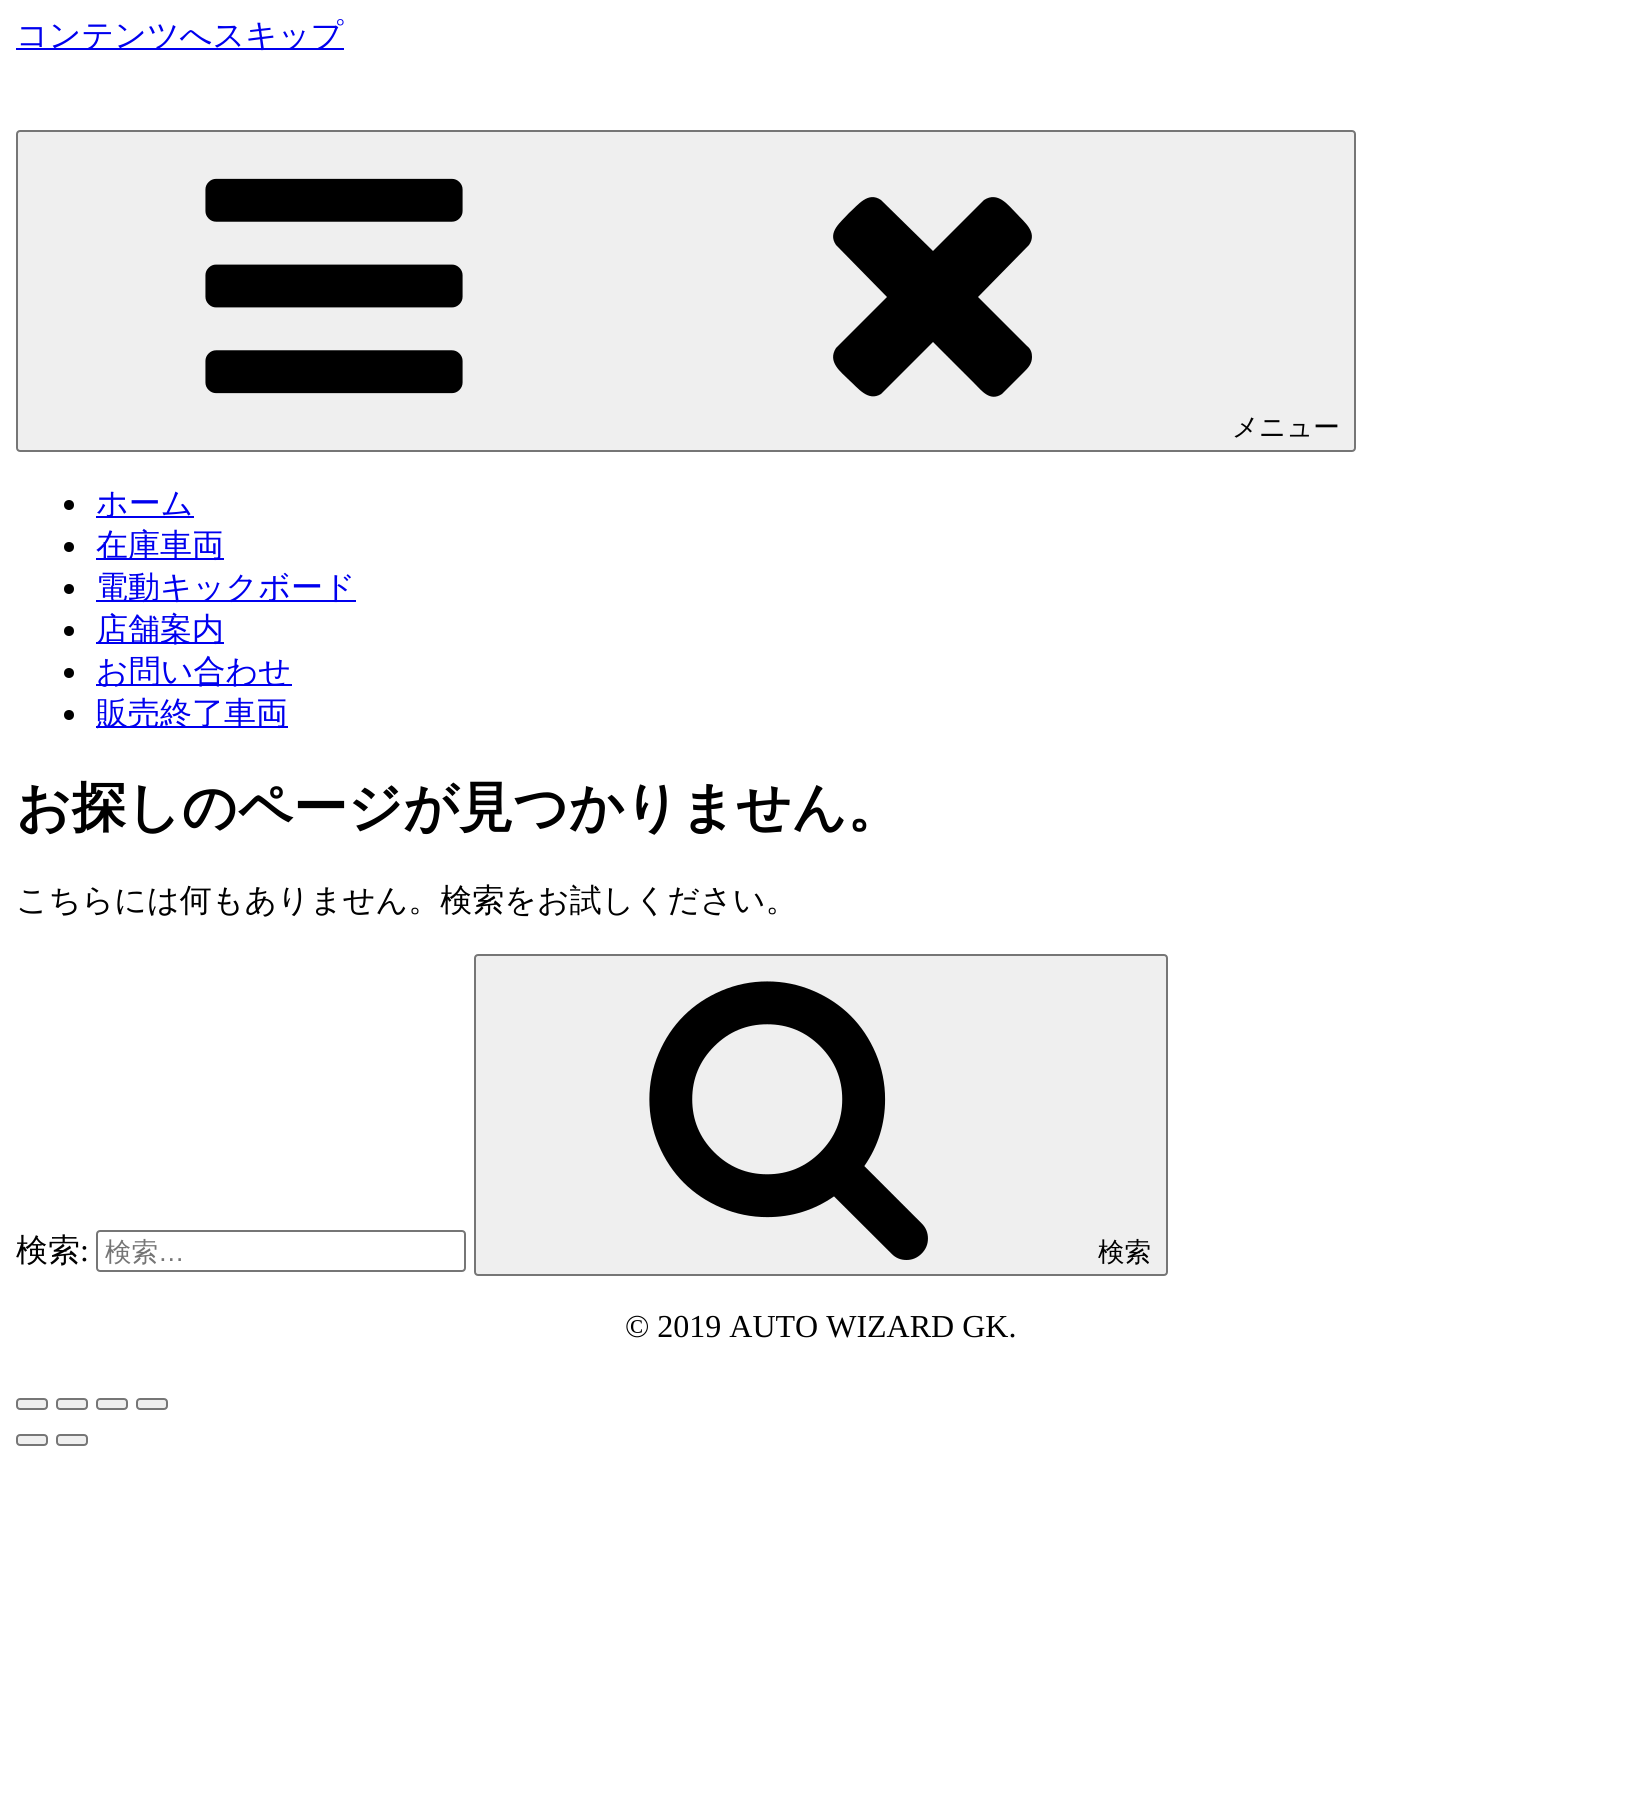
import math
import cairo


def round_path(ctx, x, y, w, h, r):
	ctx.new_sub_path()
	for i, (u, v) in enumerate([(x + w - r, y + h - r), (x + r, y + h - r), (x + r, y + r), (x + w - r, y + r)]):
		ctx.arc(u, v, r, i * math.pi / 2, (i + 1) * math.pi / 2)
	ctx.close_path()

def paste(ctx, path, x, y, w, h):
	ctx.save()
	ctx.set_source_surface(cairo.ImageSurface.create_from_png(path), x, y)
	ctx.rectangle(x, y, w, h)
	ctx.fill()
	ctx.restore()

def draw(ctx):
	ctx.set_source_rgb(1, 1, 1)
	ctx.paint()
	ctx.set_source_rgb(0, 0, 0.933)
	ctx.rectangle(16, 48, 328, 2)
	ctx.fill()
	ctx.select_font_face('WenQuanYi Zen Hei Medium')
	ctx.set_font_size(32)
	ctx.move_to(16, 46)
	ctx.show_text('コンテンツへスキップ')
	ctx.set_source_rgb(0.937, 0.937, 0.937)
	round_path(ctx, 17, 131, 1338, 320, 3)
	ctx.fill_preserve()
	ctx.set_source_rgb(0.463, 0.463, 0.463)
	ctx.stroke()
	paste(ctx, 'media/1.png', 205, 178, 258, 216)
	ctx.set_source_rgb(0, 0, 0)
	ctx.new_path()
	ctx.move_to(1032, 357)
	ctx.curve_to(1032, 364, 1028, 368, 1024, 372)
	ctx.line_to(1002, 394)
	ctx.curve_to(990, 402, 982, 391, 974, 383)
	ctx.line_to(933, 342)
	ctx.line_to(881, 394)
	ctx.curve_to(868, 402, 858, 388, 849, 380)
	ctx.curve_to(841, 372, 827, 362, 836, 348)
	ctx.line_to(887, 297)
	ctx.line_to(836, 245)
	ctx.curve_to(827, 232, 841, 222, 849, 213)
	ctx.curve_to(858, 205, 868, 191, 881, 200)
	ctx.line_to(933, 251)
	ctx.line_to(984, 200)
	ctx.curve_to(998, 191, 1008, 205, 1016, 213)
	ctx.curve_to(1024, 222, 1038, 232, 1029, 245)
	ctx.line_to(978, 297)
	ctx.line_to(1027, 346)
	ctx.curve_to(1031, 349, 1032, 353, 1032, 357)
	ctx.close_path()
	ctx.fill()
	ctx.set_font_size(26.5)
	ctx.move_to(1232, 436)
	ctx.show_text('メニュー')
	ctx.new_path()
	ctx.arc(69, 505, 5, 0, 2 * math.pi)
	ctx.fill()
	ctx.set_source_rgb(0, 0, 0.933)
	ctx.rectangle(96, 516, 98, 2)
	ctx.fill()
	ctx.set_font_size(32)
	ctx.move_to(96, 514)
	ctx.show_text('ホーム')
	ctx.set_source_rgb(0, 0, 0)
	ctx.new_path()
	ctx.arc(69, 547, 5, 0, 2 * math.pi)
	ctx.fill()
	ctx.set_source_rgb(0, 0, 0.933)
	ctx.rectangle(96, 558, 128, 2)
	ctx.fill()
	ctx.move_to(96, 556)
	ctx.show_text('在庫車両')
	ctx.set_source_rgb(0, 0, 0)
	ctx.new_path()
	ctx.arc(69, 589, 5, 0, 2 * math.pi)
	ctx.fill()
	ctx.set_source_rgb(0, 0, 0.933)
	ctx.rectangle(96, 600, 260, 2)
	ctx.fill()
	ctx.move_to(96, 598)
	ctx.show_text('電動キックボード')
	ctx.set_source_rgb(0, 0, 0)
	ctx.new_path()
	ctx.arc(69, 631, 5, 0, 2 * math.pi)
	ctx.fill()
	ctx.set_source_rgb(0, 0, 0.933)
	ctx.rectangle(96, 642, 128, 2)
	ctx.fill()
	ctx.move_to(96, 640)
	ctx.show_text('店舗案内')
	ctx.set_source_rgb(0, 0, 0)
	ctx.new_path()
	ctx.arc(69, 673, 5, 0, 2 * math.pi)
	ctx.fill()
	ctx.set_source_rgb(0, 0, 0.933)
	ctx.rectangle(96, 684, 196, 2)
	ctx.fill()
	ctx.move_to(96, 682)
	ctx.show_text('お問い合わせ')
	ctx.set_source_rgb(0, 0, 0)
	ctx.new_path()
	ctx.arc(69, 715, 5, 0, 2 * math.pi)
	ctx.fill()
	ctx.set_source_rgb(0, 0, 0.933)
	ctx.rectangle(96, 726, 192, 2)
	ctx.fill()
	ctx.move_to(96, 724)
	ctx.show_text('販売終了車両')
	ctx.select_font_face('WenQuanYi Zen Hei', cairo.FONT_SLANT_NORMAL, cairo.FONT_WEIGHT_BOLD)
	ctx.set_font_size(54.4)
	ctx.set_source_rgb(0, 0, 0)
	ctx.move_to(16, 826)
	ctx.show_text('お探しのページが見つかりません。')
	ctx.select_font_face('WenQuanYi Zen Hei Medium')
	ctx.set_font_size(32)
	ctx.move_to(16, 911)
	ctx.show_text('こちらには何もありません。検索をお試しください。')
	ctx.move_to(16, 1261)
	ctx.show_text('検索')
	ctx.select_font_face('Liberation Serif')
	ctx.move_to(80, 1261)
	ctx.show_text(':')
	round_path(ctx, 97, 1231, 368, 40, 3)
	ctx.set_source_rgb(0.463, 0.463, 0.463)
	ctx.stroke()
	ctx.select_font_face('WenQuanYi Zen Hei Medium')
	ctx.set_font_size(26.5)
	ctx.set_source_rgb(0.459, 0.459, 0.459)
	ctx.move_to(105, 1261)
	ctx.show_text('検索')
	ctx.select_font_face('Liberation Sans')
	ctx.move_to(158, 1261)
	ctx.show_text('…')
	ctx.set_source_rgb(0.937, 0.937, 0.937)
	round_path(ctx, 475, 955, 692, 320, 3)
	ctx.fill_preserve()
	ctx.set_source_rgb(0.463, 0.463, 0.463)
	ctx.stroke()
	paste(ctx, 'media/2.png', 649, 981, 279, 279)
	ctx.select_font_face('WenQuanYi Zen Hei Medium')
	ctx.set_source_rgb(0, 0, 0)
	ctx.move_to(1098, 1261)
	ctx.show_text('検索')
	ctx.select_font_face('Liberation Serif')
	ctx.set_font_size(32)
	ctx.move_to(625, 1337)
	ctx.show_text('© 2019 AUTO WIZARD GK.')
	ctx.set_source_rgb(0.937, 0.937, 0.937)
	round_path(ctx, 17, 1399, 30, 10, 3)
	ctx.fill_preserve()
	ctx.set_source_rgb(0.463, 0.463, 0.463)
	ctx.stroke()
	ctx.set_source_rgb(0.937, 0.937, 0.937)
	round_path(ctx, 57, 1399, 30, 10, 3)
	ctx.fill_preserve()
	ctx.set_source_rgb(0.463, 0.463, 0.463)
	ctx.stroke()
	ctx.set_source_rgb(0.937, 0.937, 0.937)
	round_path(ctx, 97, 1399, 30, 10, 3)
	ctx.fill_preserve()
	ctx.set_source_rgb(0.463, 0.463, 0.463)
	ctx.stroke()
	ctx.set_source_rgb(0.937, 0.937, 0.937)
	round_path(ctx, 137, 1399, 30, 10, 3)
	ctx.fill_preserve()
	ctx.set_source_rgb(0.463, 0.463, 0.463)
	ctx.stroke()
	ctx.set_source_rgb(0.937, 0.937, 0.937)
	round_path(ctx, 17, 1435, 30, 10, 3)
	ctx.fill_preserve()
	ctx.set_source_rgb(0.463, 0.463, 0.463)
	ctx.stroke()
	ctx.set_source_rgb(0.937, 0.937, 0.937)
	round_path(ctx, 57, 1435, 30, 10, 3)
	ctx.fill_preserve()
	ctx.set_source_rgb(0.463, 0.463, 0.463)
	ctx.stroke()


surface = cairo.ImageSurface(cairo.FORMAT_RGB24, 1642, 1805)
ctx = cairo.Context(surface)
options = cairo.FontOptions()
options.set_hint_metrics(cairo.HINT_METRICS_OFF)
options.set_hint_style(cairo.HINT_STYLE_NONE)
ctx.set_font_options(options)
ctx.set_miter_limit(4)
draw(ctx)
surface.write_to_png('image.png')
